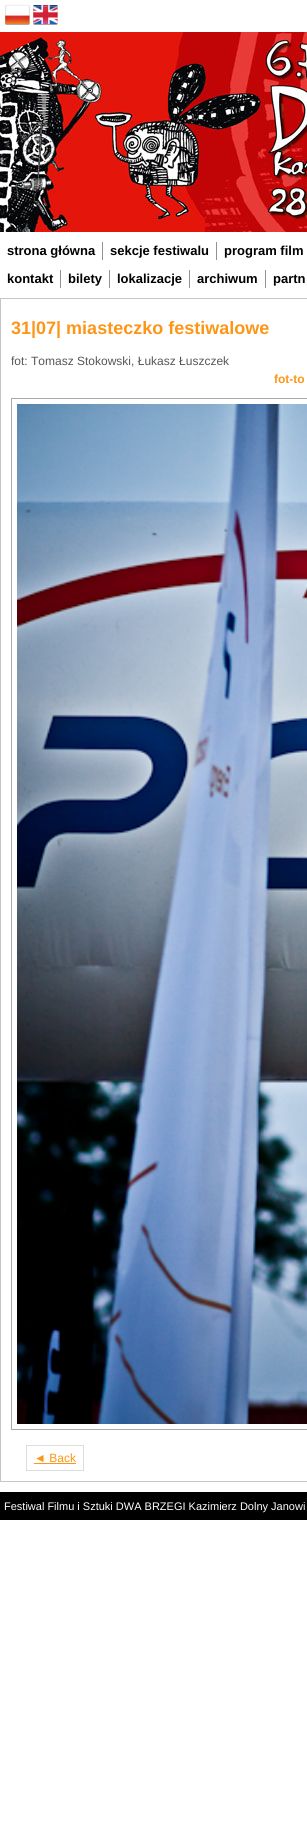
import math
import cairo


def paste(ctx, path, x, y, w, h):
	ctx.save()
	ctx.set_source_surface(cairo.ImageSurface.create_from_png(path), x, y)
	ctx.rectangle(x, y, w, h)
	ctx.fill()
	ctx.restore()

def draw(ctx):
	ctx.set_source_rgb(1, 1, 1)
	ctx.paint()
	paste(ctx, 'media/1.png', 5, 4, 25, 21)
	paste(ctx, 'media/2.png', 33, 5, 25, 20)
	paste(ctx, 'media/3.png', 0, 32, 307, 200)
	ctx.select_font_face('Liberation Sans', cairo.FONT_SLANT_NORMAL, cairo.FONT_WEIGHT_BOLD)
	ctx.set_font_size(13)
	ctx.set_source_rgb(0, 0, 0)
	ctx.move_to(7, 255)
	ctx.show_text('strona główna')
	ctx.set_source_rgb(0.573, 0.573, 0.573)
	ctx.rectangle(102, 242, 1, 18)
	ctx.fill()
	ctx.set_source_rgb(0, 0, 0)
	ctx.move_to(110, 255)
	ctx.show_text('sekcje festiwalu')
	ctx.set_source_rgb(0.573, 0.573, 0.573)
	ctx.rectangle(216, 242, 1, 18)
	ctx.fill()
	ctx.set_source_rgb(0, 0, 0)
	ctx.move_to(224, 255)
	ctx.show_text('program film')
	ctx.move_to(7, 283)
	ctx.show_text('kontakt')
	ctx.set_source_rgb(0.573, 0.573, 0.573)
	ctx.rectangle(60, 270, 1, 18)
	ctx.fill()
	ctx.set_source_rgb(0, 0, 0)
	ctx.move_to(68, 283)
	ctx.show_text('bilety')
	ctx.set_source_rgb(0.573, 0.573, 0.573)
	ctx.rectangle(109, 270, 1, 18)
	ctx.fill()
	ctx.set_source_rgb(0, 0, 0)
	ctx.move_to(117, 283)
	ctx.show_text('lokalizacje')
	ctx.set_source_rgb(0.573, 0.573, 0.573)
	ctx.rectangle(189, 270, 1, 18)
	ctx.fill()
	ctx.set_source_rgb(0, 0, 0)
	ctx.move_to(197, 283)
	ctx.show_text('archiwum')
	ctx.set_source_rgb(0.573, 0.573, 0.573)
	ctx.rectangle(265, 270, 1, 18)
	ctx.fill()
	ctx.set_source_rgb(0, 0, 0)
	ctx.move_to(273, 283)
	ctx.show_text('partn')
	ctx.rectangle(0.5, 298.5, 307, 1183)
	ctx.set_source_rgb(0.776, 0.776, 0.776)
	ctx.set_line_width(1)
	ctx.stroke()
	ctx.set_font_size(18)
	ctx.set_source_rgb(0.992, 0.588, 0.086)
	ctx.move_to(11, 334)
	ctx.show_text('31|07| miasteczko festiwalowe')
	ctx.select_font_face('Liberation Sans')
	ctx.set_font_size(12)
	ctx.set_source_rgb(0.337, 0.337, 0.337)
	ctx.move_to(11, 365)
	ctx.show_text('fot: Tomasz Stokowski, Łukasz Łuszczek')
	ctx.select_font_face('Liberation Sans', cairo.FONT_SLANT_NORMAL, cairo.FONT_WEIGHT_BOLD)
	ctx.set_source_rgb(0.992, 0.588, 0.086)
	ctx.move_to(274, 383)
	ctx.show_text('fot-to')
	ctx.rectangle(11.5, 398.5, 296, 1031)
	ctx.set_source_rgb(0.663, 0.663, 0.663)
	ctx.stroke()
	paste(ctx, 'media/4.png', 17, 404, 290, 1020)
	ctx.rectangle(26.5, 1445.5, 57, 25)
	ctx.set_source_rgb(0.867, 0.867, 0.867)
	ctx.stroke()
	ctx.select_font_face('Liberation Sans')
	ctx.set_source_rgb(0.992, 0.588, 0.086)
	ctx.move_to(34, 1462)
	ctx.show_text('◄ Back')
	ctx.rectangle(34, 1463, 42, 1)
	ctx.fill()
	ctx.set_source_rgb(0, 0, 0)
	ctx.rectangle(0, 1492, 307, 28)
	ctx.fill()
	ctx.set_font_size(11)
	ctx.set_source_rgb(1, 1, 1)
	ctx.move_to(4, 1510)
	ctx.show_text('Festiwal Filmu i Sztuki DWA BRZEGI Kazimierz Dolny Janowi')


surface = cairo.ImageSurface(cairo.FORMAT_RGB24, 307, 1832)
ctx = cairo.Context(surface)
options = cairo.FontOptions()
options.set_hint_metrics(cairo.HINT_METRICS_OFF)
options.set_hint_style(cairo.HINT_STYLE_NONE)
ctx.set_font_options(options)
ctx.set_miter_limit(4)
draw(ctx)
surface.write_to_png('image.png')
